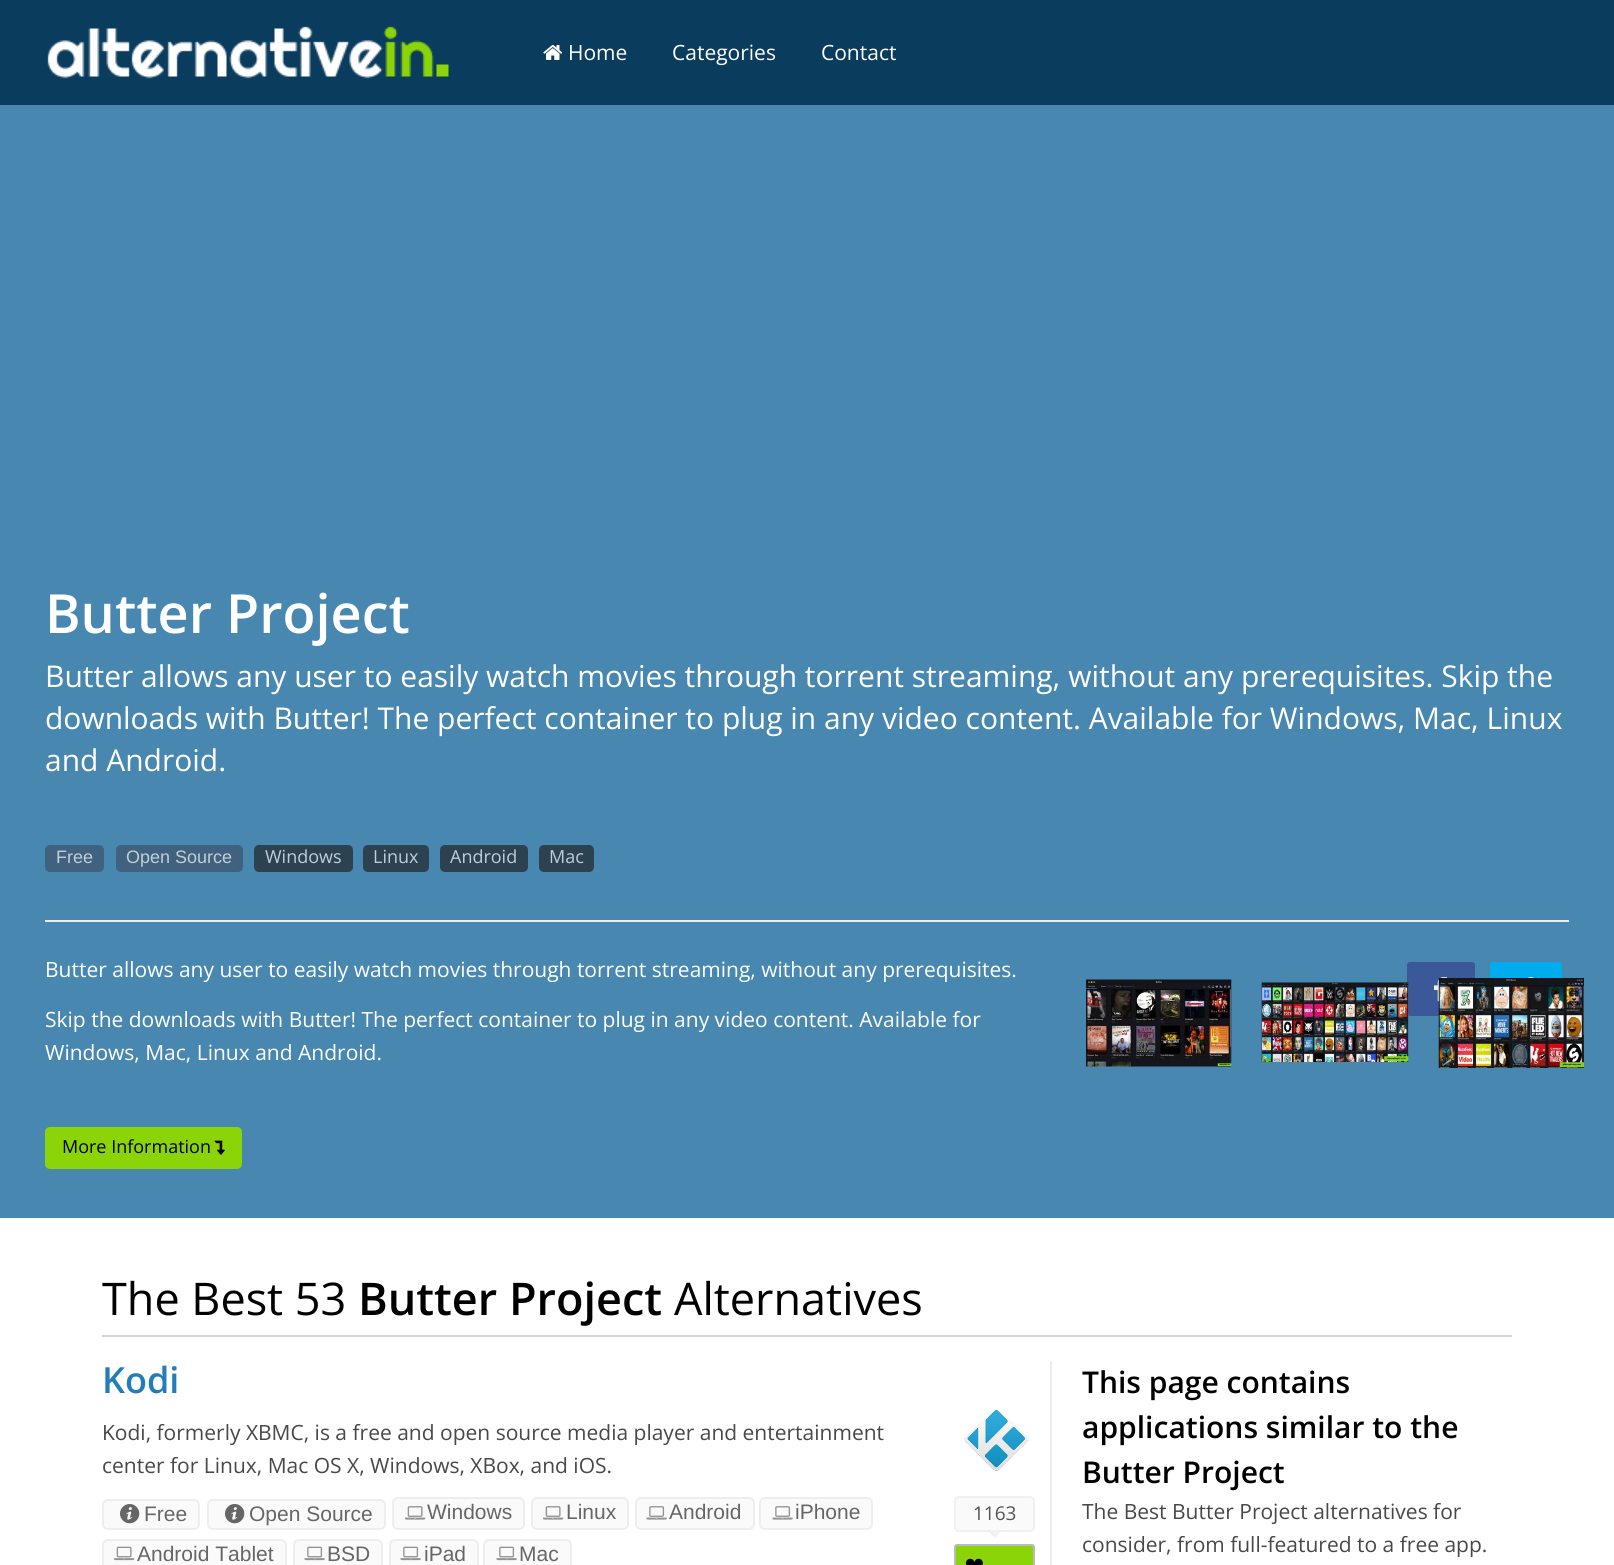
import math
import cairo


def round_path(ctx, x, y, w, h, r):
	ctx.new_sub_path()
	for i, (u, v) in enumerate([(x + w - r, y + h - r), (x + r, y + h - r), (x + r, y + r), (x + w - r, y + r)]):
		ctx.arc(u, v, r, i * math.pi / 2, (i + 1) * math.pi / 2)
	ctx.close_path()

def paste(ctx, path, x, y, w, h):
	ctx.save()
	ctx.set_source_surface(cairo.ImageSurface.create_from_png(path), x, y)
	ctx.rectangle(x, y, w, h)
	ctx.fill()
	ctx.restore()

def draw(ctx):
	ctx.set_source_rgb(1, 1, 1)
	ctx.paint()
	ctx.set_source_rgb(0.039, 0.235, 0.365)
	ctx.rectangle(0, 0, 1614, 105)
	ctx.fill()
	paste(ctx, 'media/1.png', 47, 26, 402, 53)
	paste(ctx, 'media/2.png', 543, 45, 20, 15)
	ctx.select_font_face('Open Sans')
	ctx.set_font_size(21)
	ctx.set_source_rgb(1, 1, 1)
	for x, y, s in [
		(568, 60, 'Home'),
		(672, 60, 'Categories'),
		(821, 60, 'Contact'),
	]:
		ctx.move_to(x, y)
		ctx.show_text(s)
	ctx.set_source_rgb(0.282, 0.529, 0.69)
	ctx.rectangle(0, 105, 1614, 1113)
	ctx.fill()
	ctx.select_font_face('Open Sans SemiBold')
	ctx.set_font_size(54)
	ctx.set_source_rgb(1, 1, 1)
	ctx.move_to(45, 633)
	ctx.show_text('Butter Project')
	ctx.select_font_face('Open Sans')
	ctx.set_font_size(30)
	for x, y, s in [
		(45, 687, 'Butter allows any user to easily watch movies through torrent streaming, without any prerequisites. Skip the'),
		(45, 729, 'downloads with Butter! The perfect container to plug in any video content. Available for Windows, Mac, Linux'),
		(45, 771, 'and Android.'),
	]:
		ctx.move_to(x, y)
		ctx.show_text(s)
	ctx.set_source_rgb(0.255, 0.384, 0.494)
	round_path(ctx, 45, 845, 59, 27, 5)
	ctx.fill()
	ctx.select_font_face('Liberation Sans')
	ctx.set_font_size(18)
	ctx.set_source_rgb(0.753, 0.808, 0.855)
	ctx.move_to(56, 863)
	ctx.show_text('Free')
	ctx.set_source_rgb(0.255, 0.384, 0.494)
	round_path(ctx, 116, 845, 127, 27, 5)
	ctx.fill()
	ctx.set_source_rgb(0.753, 0.808, 0.855)
	ctx.move_to(126, 863)
	ctx.show_text('Open Source')
	ctx.set_source_rgb(0.173, 0.259, 0.314)
	round_path(ctx, 254, 845, 99, 27, 5)
	ctx.fill()
	ctx.select_font_face('Open Sans')
	ctx.set_source_rgb(0.753, 0.808, 0.855)
	ctx.move_to(265, 863)
	ctx.show_text('Windows')
	ctx.set_source_rgb(0.173, 0.259, 0.314)
	round_path(ctx, 363, 845, 66, 27, 5)
	ctx.fill()
	ctx.set_source_rgb(0.753, 0.808, 0.855)
	ctx.move_to(373, 863)
	ctx.show_text('Linux')
	ctx.set_source_rgb(0.173, 0.259, 0.314)
	round_path(ctx, 440, 845, 88, 27, 5)
	ctx.fill()
	ctx.set_source_rgb(0.753, 0.808, 0.855)
	ctx.move_to(450, 863)
	ctx.show_text('Android')
	ctx.set_source_rgb(0.173, 0.259, 0.314)
	round_path(ctx, 539, 845, 55, 27, 5)
	ctx.fill()
	ctx.set_source_rgb(0.753, 0.808, 0.855)
	ctx.move_to(549, 863)
	ctx.show_text('Mac')
	ctx.set_source_rgb(0.929, 0.929, 0.929)
	ctx.rectangle(45, 920, 1524, 2)
	ctx.fill()
	ctx.set_font_size(21)
	ctx.set_source_rgb(1, 1, 1)
	for x, y, s in [
		(45, 977, 'Butter allows any user to easily watch movies through torrent streaming, without any prerequisites.'),
		(45, 1027, 'Skip the downloads with Butter! The perfect container to plug in any video content. Available for'),
		(45, 1060, 'Windows, Mac, Linux and Android.'),
	]:
		ctx.move_to(x, y)
		ctx.show_text(s)
	ctx.set_source_rgb(0.541, 0.831, 0.035)
	round_path(ctx, 45, 1127, 197, 42, 5)
	ctx.fill()
	ctx.set_font_size(18)
	ctx.set_source_rgb(0, 0, 0)
	ctx.move_to(62, 1153)
	ctx.show_text('More Information')
	paste(ctx, 'media/3.png', 214, 1140, 11, 15)
	paste(ctx, 'media/4.png', 1086, 979, 146, 88)
	ctx.set_source_rgb(0.231, 0.349, 0.596)
	round_path(ctx, 1408, 963, 66, 52, 2)
	ctx.fill_preserve()
	ctx.stroke()
	paste(ctx, 'media/5.png', 1261, 982, 148, 80)
	paste(ctx, 'media/7.png', 1434, 977, 13, 25)
	ctx.set_source_rgb(0, 0.675, 0.933)
	round_path(ctx, 1491, 963, 70, 52, 2)
	ctx.fill_preserve()
	ctx.stroke()
	paste(ctx, 'media/6.png', 1438, 978, 146, 90)
	paste(ctx, 'media/8.png', 1528, 977, 12, 1)
	ctx.set_source_rgb(0.839, 0.839, 0.839)
	ctx.rectangle(102, 1335, 1410, 2)
	ctx.fill()
	ctx.set_font_size(45)
	ctx.set_source_rgb(0, 0, 0)
	ctx.move_to(102, 1315)
	ctx.show_text('The Best 53')
	ctx.select_font_face('Open Sans SemiBold')
	ctx.move_to(358, 1315)
	ctx.show_text('Butter Project')
	ctx.select_font_face('Open Sans')
	ctx.move_to(674, 1315)
	ctx.show_text('Alternatives')
	ctx.select_font_face('Open Sans SemiBold')
	ctx.set_font_size(36)
	ctx.set_source_rgb(0.133, 0.49, 0.725)
	ctx.move_to(102, 1393)
	ctx.show_text('Kodi')
	ctx.select_font_face('Open Sans')
	ctx.set_font_size(21)
	ctx.set_source_rgb(0.282, 0.282, 0.282)
	ctx.move_to(102, 1440)
	ctx.show_text('Kodi, formerly XBMC, is a free and open source media player and entertainment')
	ctx.move_to(102, 1473)
	ctx.show_text('center for Linux, Mac OS X, Windows, XBox, and iOS.')
	ctx.set_source_rgb(0.98, 0.98, 0.98)
	round_path(ctx, 103, 1500, 96, 29, 5)
	ctx.fill_preserve()
	ctx.set_source_rgb(0.933, 0.933, 0.933)
	ctx.stroke()
	paste(ctx, 'media/9.png', 120, 1504, 20, 20)
	ctx.select_font_face('Liberation Sans')
	ctx.set_source_rgb(0.4, 0.4, 0.4)
	ctx.move_to(144, 1521)
	ctx.show_text('Free')
	ctx.set_source_rgb(0.98, 0.98, 0.98)
	round_path(ctx, 208, 1500, 177, 29, 5)
	ctx.fill_preserve()
	ctx.set_source_rgb(0.933, 0.933, 0.933)
	ctx.stroke()
	paste(ctx, 'media/9.png', 225, 1504, 20, 20)
	ctx.set_source_rgb(0.4, 0.4, 0.4)
	ctx.move_to(249, 1521)
	ctx.show_text('Open Source')
	ctx.set_source_rgb(0.98, 0.98, 0.98)
	round_path(ctx, 393, 1498, 131, 31, 5)
	ctx.fill_preserve()
	ctx.set_source_rgb(0.933, 0.933, 0.933)
	ctx.stroke()
	paste(ctx, 'media/10.png', 405, 1506, 21, 14)
	ctx.set_source_rgb(0.4, 0.4, 0.4)
	ctx.move_to(427, 1519)
	ctx.show_text('Windows')
	ctx.set_source_rgb(0.98, 0.98, 0.98)
	round_path(ctx, 532, 1498, 96, 31, 5)
	ctx.fill_preserve()
	ctx.set_source_rgb(0.933, 0.933, 0.933)
	ctx.stroke()
	paste(ctx, 'media/10.png', 543, 1506, 21, 14)
	ctx.set_source_rgb(0.4, 0.4, 0.4)
	ctx.move_to(566, 1519)
	ctx.show_text('Linux')
	ctx.set_source_rgb(0.98, 0.98, 0.98)
	round_path(ctx, 636, 1498, 118, 31, 5)
	ctx.fill_preserve()
	ctx.set_source_rgb(0.933, 0.933, 0.933)
	ctx.stroke()
	paste(ctx, 'media/11.png', 646, 1506, 21, 14)
	ctx.set_source_rgb(0.4, 0.4, 0.4)
	ctx.move_to(669, 1519)
	ctx.show_text('Android')
	ctx.set_source_rgb(0.98, 0.98, 0.98)
	round_path(ctx, 760, 1498, 112, 31, 5)
	ctx.fill_preserve()
	ctx.set_source_rgb(0.933, 0.933, 0.933)
	ctx.stroke()
	paste(ctx, 'media/11.png', 772, 1506, 21, 14)
	ctx.set_source_rgb(0.4, 0.4, 0.4)
	ctx.move_to(795, 1519)
	ctx.show_text('iPhone')
	ctx.set_source_rgb(0.98, 0.98, 0.98)
	round_path(ctx, 103, 1540, 183, 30, 5)
	ctx.fill_preserve()
	ctx.set_source_rgb(0.933, 0.933, 0.933)
	ctx.stroke()
	paste(ctx, 'media/12.png', 114, 1546, 21, 15)
	ctx.set_source_rgb(0.4, 0.4, 0.4)
	ctx.move_to(137, 1561)
	ctx.show_text('Android Tablet')
	ctx.set_source_rgb(0.98, 0.98, 0.98)
	round_path(ctx, 294, 1540, 88, 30, 5)
	ctx.fill_preserve()
	ctx.set_source_rgb(0.933, 0.933, 0.933)
	ctx.stroke()
	paste(ctx, 'media/13.png', 304, 1546, 21, 15)
	ctx.set_source_rgb(0.4, 0.4, 0.4)
	ctx.move_to(327, 1561)
	ctx.show_text('BSD')
	ctx.set_source_rgb(0.98, 0.98, 0.98)
	round_path(ctx, 390, 1540, 88, 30, 5)
	ctx.fill_preserve()
	ctx.set_source_rgb(0.933, 0.933, 0.933)
	ctx.stroke()
	paste(ctx, 'media/13.png', 400, 1546, 21, 15)
	ctx.set_source_rgb(0.4, 0.4, 0.4)
	ctx.move_to(424, 1561)
	ctx.show_text('iPad')
	ctx.set_source_rgb(0.98, 0.98, 0.98)
	round_path(ctx, 484, 1540, 87, 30, 5)
	ctx.fill_preserve()
	ctx.set_source_rgb(0.933, 0.933, 0.933)
	ctx.stroke()
	paste(ctx, 'media/13.png', 496, 1546, 21, 15)
	ctx.set_source_rgb(0.4, 0.4, 0.4)
	ctx.move_to(519, 1561)
	ctx.show_text('Mac')
	paste(ctx, 'media/14.png', 964, 1409, 65, 62)
	ctx.set_source_rgb(0.98, 0.98, 0.98)
	round_path(ctx, 955, 1497, 79, 34, 4)
	ctx.fill_preserve()
	ctx.set_source_rgb(0.941, 0.941, 0.941)
	ctx.stroke()
	ctx.select_font_face('Open Sans')
	ctx.set_font_size(19)
	ctx.set_source_rgb(0.325, 0.325, 0.325)
	ctx.move_to(973, 1520)
	ctx.show_text('1163')
	ctx.set_source_rgb(0.91, 0.918, 0.922)
	ctx.new_path()
	ctx.move_to(987, 1530)
	ctx.line_to(1002, 1530)
	ctx.line_to(994.5, 1537.5)
	ctx.close_path()
	ctx.fill()
	ctx.set_source_rgb(0.949, 0.949, 0.949)
	ctx.new_path()
	ctx.move_to(988.5, 1530)
	ctx.line_to(1000.5, 1530)
	ctx.line_to(994.5, 1536)
	ctx.close_path()
	ctx.fill()
	ctx.set_source_rgb(0.541, 0.831, 0.035)
	round_path(ctx, 955, 1545, 79, 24, 2)
	ctx.fill_preserve()
	ctx.set_source_rgb(0.733, 0.733, 0.733)
	ctx.stroke()
	paste(ctx, 'media/15.png', 966, 1558, 17, 7)
	ctx.set_source_rgb(0.929, 0.929, 0.929)
	ctx.rectangle(1050, 1361, 2, 204)
	ctx.fill()
	ctx.select_font_face('Open Sans SemiBold')
	ctx.set_font_size(30)
	ctx.set_source_rgb(0, 0, 0)
	for x, y, s in [
		(1082, 1393, 'This page contains'),
		(1082, 1438, 'applications similar to the'),
		(1082, 1483, 'Butter Project'),
	]:
		ctx.move_to(x, y)
		ctx.show_text(s)
	ctx.select_font_face('Open Sans')
	ctx.set_font_size(21)
	ctx.set_source_rgb(0.282, 0.282, 0.282)
	ctx.move_to(1082, 1519)
	ctx.show_text('The Best Butter Project alternatives for')
	ctx.move_to(1082, 1552)
	ctx.show_text('consider, from full-featured to a free app.')


surface = cairo.ImageSurface(cairo.FORMAT_RGB24, 1614, 1565)
ctx = cairo.Context(surface)
options = cairo.FontOptions()
options.set_hint_metrics(cairo.HINT_METRICS_OFF)
options.set_hint_style(cairo.HINT_STYLE_NONE)
ctx.set_font_options(options)
ctx.set_miter_limit(4)
draw(ctx)
surface.write_to_png('image.png')
